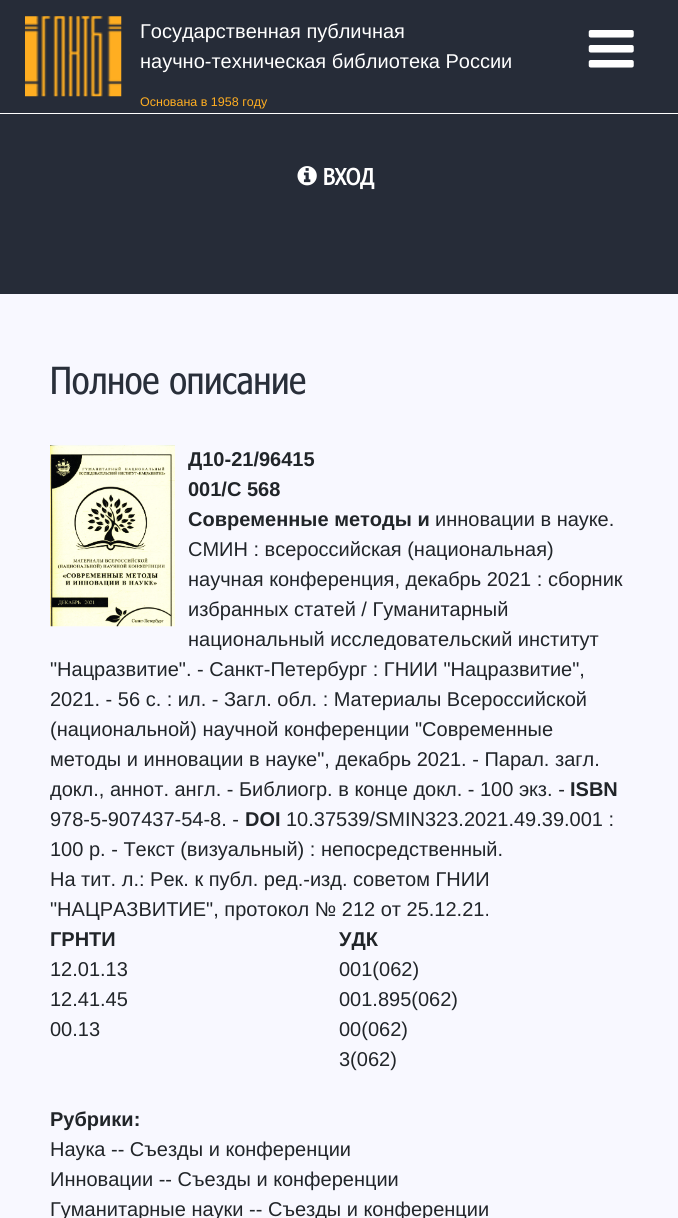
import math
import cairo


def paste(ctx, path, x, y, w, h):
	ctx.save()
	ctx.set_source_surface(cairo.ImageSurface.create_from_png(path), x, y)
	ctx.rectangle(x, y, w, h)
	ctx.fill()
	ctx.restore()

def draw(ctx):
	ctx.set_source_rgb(0.969, 0.969, 1)
	ctx.paint()
	ctx.set_source_rgb(0.149, 0.173, 0.22)
	ctx.rectangle(0, 0, 678, 113)
	ctx.fill()
	paste(ctx, 'media/1.png', 25, 16, 97, 81)
	ctx.select_font_face('Liberation Sans')
	ctx.set_font_size(20)
	ctx.set_source_rgb(1, 1, 1)
	ctx.move_to(140, 38)
	ctx.show_text('Государственная публичная')
	ctx.move_to(140, 68)
	ctx.show_text('научно-техническая библиотека России')
	ctx.set_font_size(12.5)
	ctx.set_source_rgb(1, 0.682, 0.129)
	ctx.move_to(140, 106)
	ctx.show_text('Основана в 1958 году')
	paste(ctx, 'media/2.png', 588, 30, 46, 38)
	ctx.set_source_rgb(0.149, 0.173, 0.22)
	ctx.rectangle(0, 114, 678, 180)
	ctx.fill()
	ctx.set_source_rgb(1, 1, 1)
	ctx.rectangle(0, 113, 678, 1)
	ctx.fill()
	paste(ctx, 'media/3.png', 297, 166, 20, 20)
	ctx.select_font_face('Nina', cairo.FONT_SLANT_NORMAL, cairo.FONT_WEIGHT_BOLD)
	ctx.set_font_size(22.5)
	ctx.move_to(323, 185)
	ctx.show_text('ВХОД')
	ctx.select_font_face('Nina')
	ctx.set_font_size(37.5)
	ctx.set_source_rgb(0.161, 0.184, 0.227)
	ctx.move_to(50, 394)
	ctx.show_text('Полное описание')
	paste(ctx, 'media/4.png', 50, 445, 125, 182)
	ctx.select_font_face('Liberation Sans', cairo.FONT_SLANT_NORMAL, cairo.FONT_WEIGHT_BOLD)
	ctx.set_font_size(20)
	ctx.set_source_rgb(0.129, 0.145, 0.161)
	for x, y, s in [
		(188, 466, 'Д10-21/96415'),
		(188, 496, '001/С 568'),
		(188, 526, 'Современные методы и'),
	]:
		ctx.move_to(x, y)
		ctx.show_text(s)
	ctx.select_font_face('Liberation Sans')
	for x, y, s in [
		(435, 526, 'инновации в науке.'),
		(188, 556, 'СМИН : всероссийская (национальная)'),
		(188, 586, 'научная конференция, декабрь 2021 : сборник'),
		(188, 616, 'избранных статей / Гуманитарный'),
		(188, 646, 'национальный исследовательский институт'),
		(50, 676, '"Нацразвитие". - Санкт-Петербург : ГНИИ "Нацразвитие",'),
		(50, 706, '2021. - 56 с. : ил. - Загл. обл. : Материалы Всероссийской'),
		(50, 736, '(национальной) научной конференции "Современные'),
		(50, 766, 'методы и инновации в науке", декабрь 2021. - Парал. загл.'),
		(50, 796, 'докл., аннот. англ. - Библиогр. в конце докл. - 100 экз. -'),
	]:
		ctx.move_to(x, y)
		ctx.show_text(s)
	ctx.select_font_face('Liberation Sans', cairo.FONT_SLANT_NORMAL, cairo.FONT_WEIGHT_BOLD)
	ctx.move_to(570, 796)
	ctx.show_text('ISBN')
	ctx.select_font_face('Liberation Sans')
	ctx.move_to(50, 826)
	ctx.show_text('978-5-907437-54-8. -')
	ctx.select_font_face('Liberation Sans', cairo.FONT_SLANT_NORMAL, cairo.FONT_WEIGHT_BOLD)
	ctx.move_to(245, 826)
	ctx.show_text('DOI')
	ctx.select_font_face('Liberation Sans')
	for x, y, s in [
		(286, 826, '10.37539/SMIN323.2021.49.39.001 :'),
		(50, 856, '100 р. - Текст (визуальный) : непосредственный.'),
		(50, 886, 'На тит. л.: Рек. к публ. ред.-изд. советом ГНИИ'),
		(50, 916, '"НАЦРАЗВИТИЕ", протокол № 212 от 25.12.21.'),
	]:
		ctx.move_to(x, y)
		ctx.show_text(s)
	ctx.select_font_face('Liberation Sans', cairo.FONT_SLANT_NORMAL, cairo.FONT_WEIGHT_BOLD)
	ctx.move_to(50, 946)
	ctx.show_text('ГРНТИ')
	ctx.move_to(339, 946)
	ctx.show_text('УДК')
	ctx.select_font_face('Liberation Sans')
	for x, y, s in [
		(50, 976, '12.01.13'),
		(339, 976, '001(062)'),
		(50, 1006, '12.41.45'),
		(339, 1006, '001.895(062)'),
		(50, 1036, '00.13'),
		(339, 1036, '00(062)'),
		(339, 1066, '3(062)'),
	]:
		ctx.move_to(x, y)
		ctx.show_text(s)
	ctx.select_font_face('Liberation Sans', cairo.FONT_SLANT_NORMAL, cairo.FONT_WEIGHT_BOLD)
	ctx.move_to(50, 1126)
	ctx.show_text('Рубрики:')
	ctx.select_font_face('Liberation Sans')
	for x, y, s in [
		(50, 1156, 'Наука -- Съезды и конференции'),
		(50, 1186, 'Инновации -- Съезды и конференции'),
		(50, 1216, 'Гуманитарные науки -- Съезды и конференции'),
	]:
		ctx.move_to(x, y)
		ctx.show_text(s)


surface = cairo.ImageSurface(cairo.FORMAT_RGB24, 678, 1218)
ctx = cairo.Context(surface)
options = cairo.FontOptions()
options.set_hint_metrics(cairo.HINT_METRICS_OFF)
options.set_hint_style(cairo.HINT_STYLE_NONE)
ctx.set_font_options(options)
ctx.set_miter_limit(4)
draw(ctx)
surface.write_to_png('image.png')
